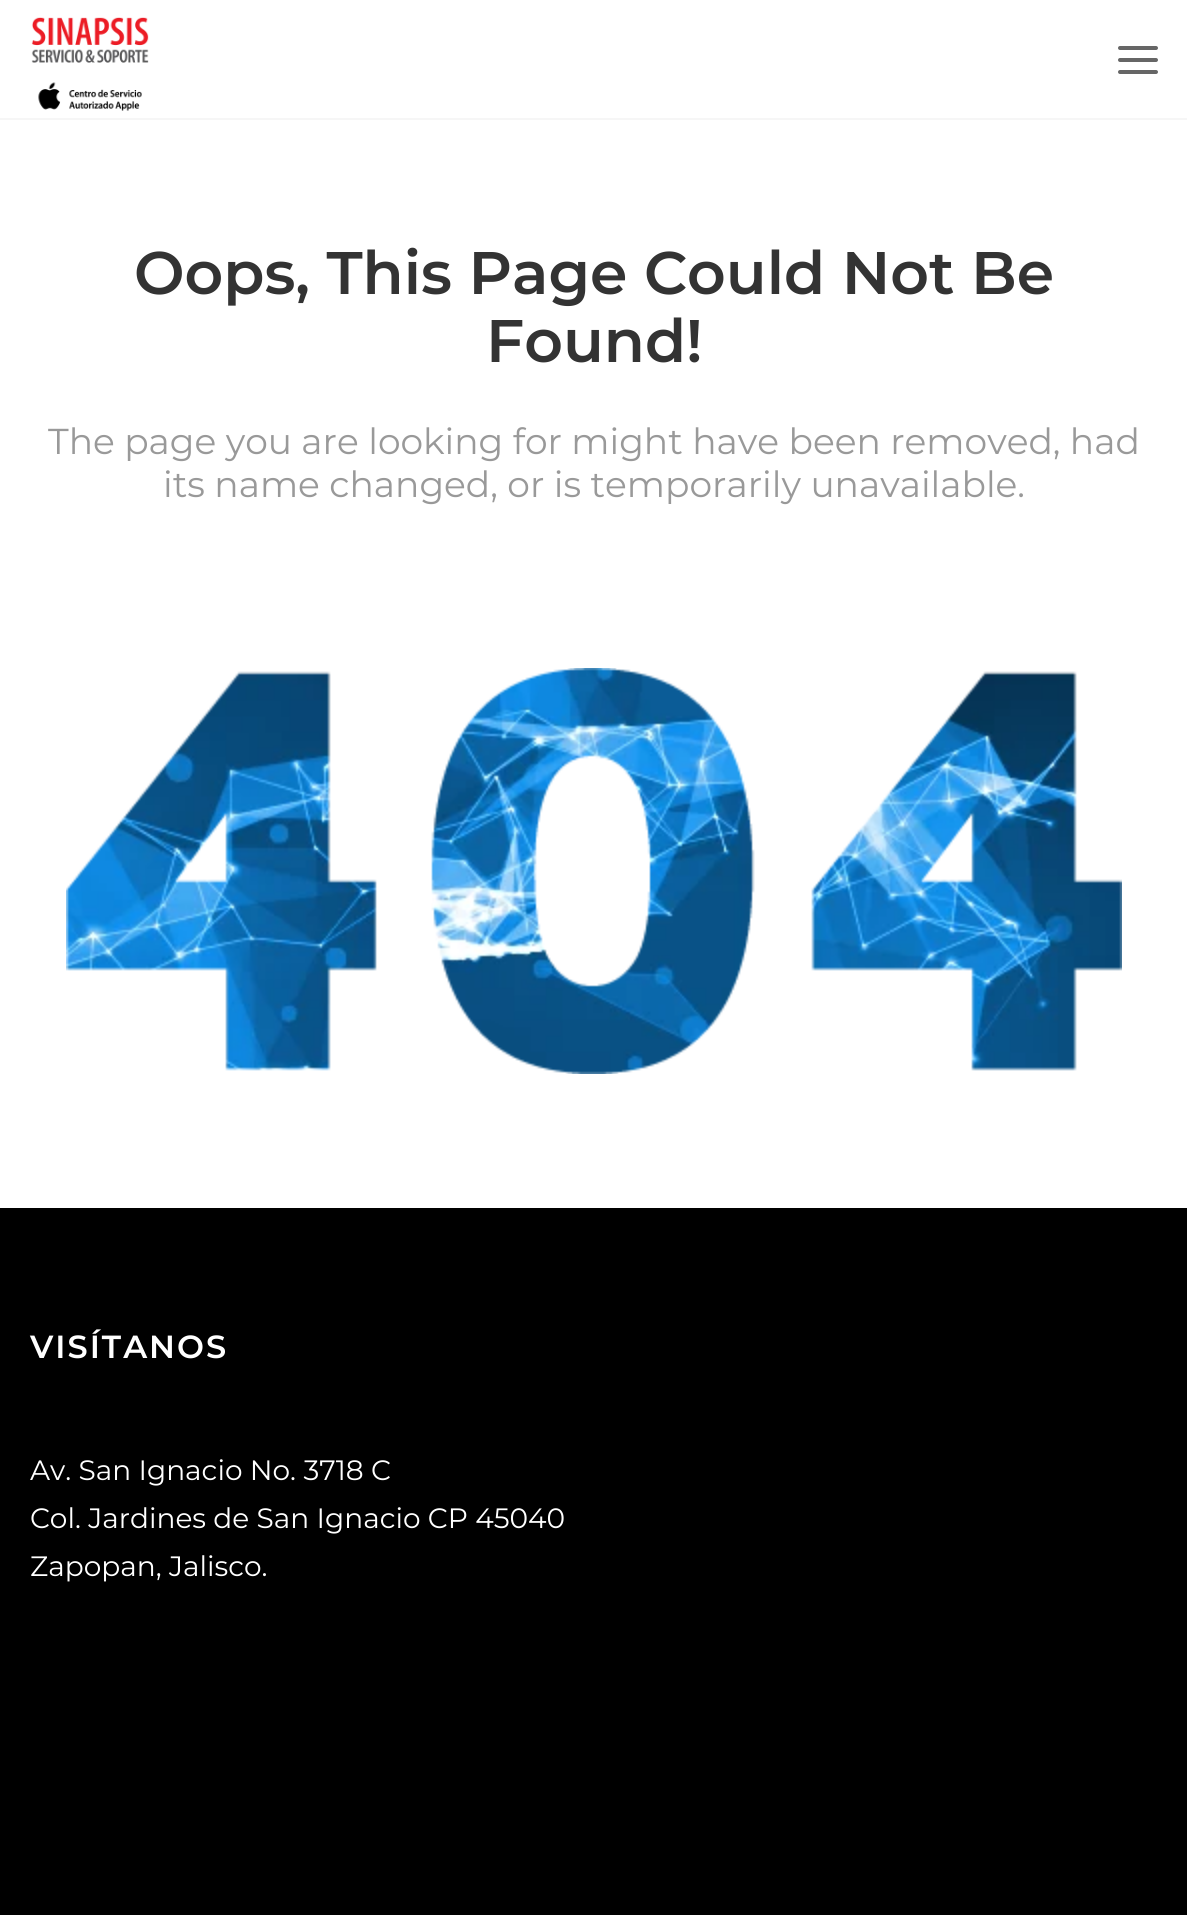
import math
import cairo


def write_spaced(ctx, x, y, s, letter, word):
	ctx.move_to(x, y)
	for ch in s:
		ctx.show_text(ch)
		ctx.rel_move_to(letter + word * (ch == ' '), 0)

def round_path(ctx, x, y, w, h, r):
	ctx.new_sub_path()
	for i, (u, v) in enumerate([(x + w - r, y + h - r), (x + r, y + h - r), (x + r, y + r), (x + w - r, y + r)]):
		ctx.arc(u, v, r, i * math.pi / 2, (i + 1) * math.pi / 2)
	ctx.close_path()

def paste(ctx, path, x, y, w, h):
	ctx.save()
	ctx.set_source_surface(cairo.ImageSurface.create_from_png(path), x, y)
	ctx.rectangle(x, y, w, h)
	ctx.fill()
	ctx.restore()

def draw(ctx):
	ctx.set_source_rgb(1, 1, 1)
	ctx.paint()
	ctx.set_source_rgb(0.961, 0.961, 0.961)
	ctx.rectangle(0, 118, 1187, 2)
	ctx.fill()
	paste(ctx, 'media/1.png', 31, 17, 118, 94)
	ctx.set_source_rgb(0.4, 0.4, 0.4)
	round_path(ctx, 1118, 58, 40, 4, 2)
	ctx.fill()
	round_path(ctx, 1118, 46, 40, 4, 2)
	ctx.fill()
	round_path(ctx, 1118, 70, 40, 4, 2)
	ctx.fill()
	ctx.select_font_face('Montserrat SemiBold')
	ctx.set_font_size(60)
	ctx.set_source_rgb(0.2, 0.2, 0.2)
	ctx.move_to(134, 294)
	ctx.show_text('Oops, This Page Could Not Be')
	ctx.move_to(486, 362)
	ctx.show_text('Found!')
	ctx.select_font_face('Montserrat')
	ctx.set_font_size(36)
	ctx.set_source_rgb(0.6, 0.6, 0.6)
	ctx.move_to(48, 454)
	ctx.show_text('The page you are looking for might have been removed, had')
	ctx.move_to(163, 497)
	ctx.show_text('its name changed, or is temporarily unavailable.')
	paste(ctx, 'media/2.png', 66, 668, 1056, 406)
	ctx.set_source_rgb(0, 0, 0)
	ctx.rectangle(0, 1208, 1187, 707)
	ctx.fill()
	ctx.select_font_face('Montserrat SemiBold')
	ctx.set_font_size(32)
	ctx.set_source_rgb(1, 1, 1)
	write_spaced(ctx, 30, 1358, 'VISÍTANOS', 2, 0)
	ctx.select_font_face('Montserrat')
	ctx.set_font_size(28)
	for x, y, s in [
		(30, 1480, 'Av. San Ignacio No. 3718 C'),
		(30, 1528, 'Col. Jardines de San Ignacio CP 45040'),
		(30, 1576, 'Zapopan, Jalisco.'),
	]:
		ctx.move_to(x, y)
		ctx.show_text(s)


surface = cairo.ImageSurface(cairo.FORMAT_RGB24, 1187, 1915)
ctx = cairo.Context(surface)
options = cairo.FontOptions()
options.set_hint_metrics(cairo.HINT_METRICS_OFF)
options.set_hint_style(cairo.HINT_STYLE_NONE)
ctx.set_font_options(options)
ctx.set_miter_limit(4)
draw(ctx)
surface.write_to_png('image.png')
